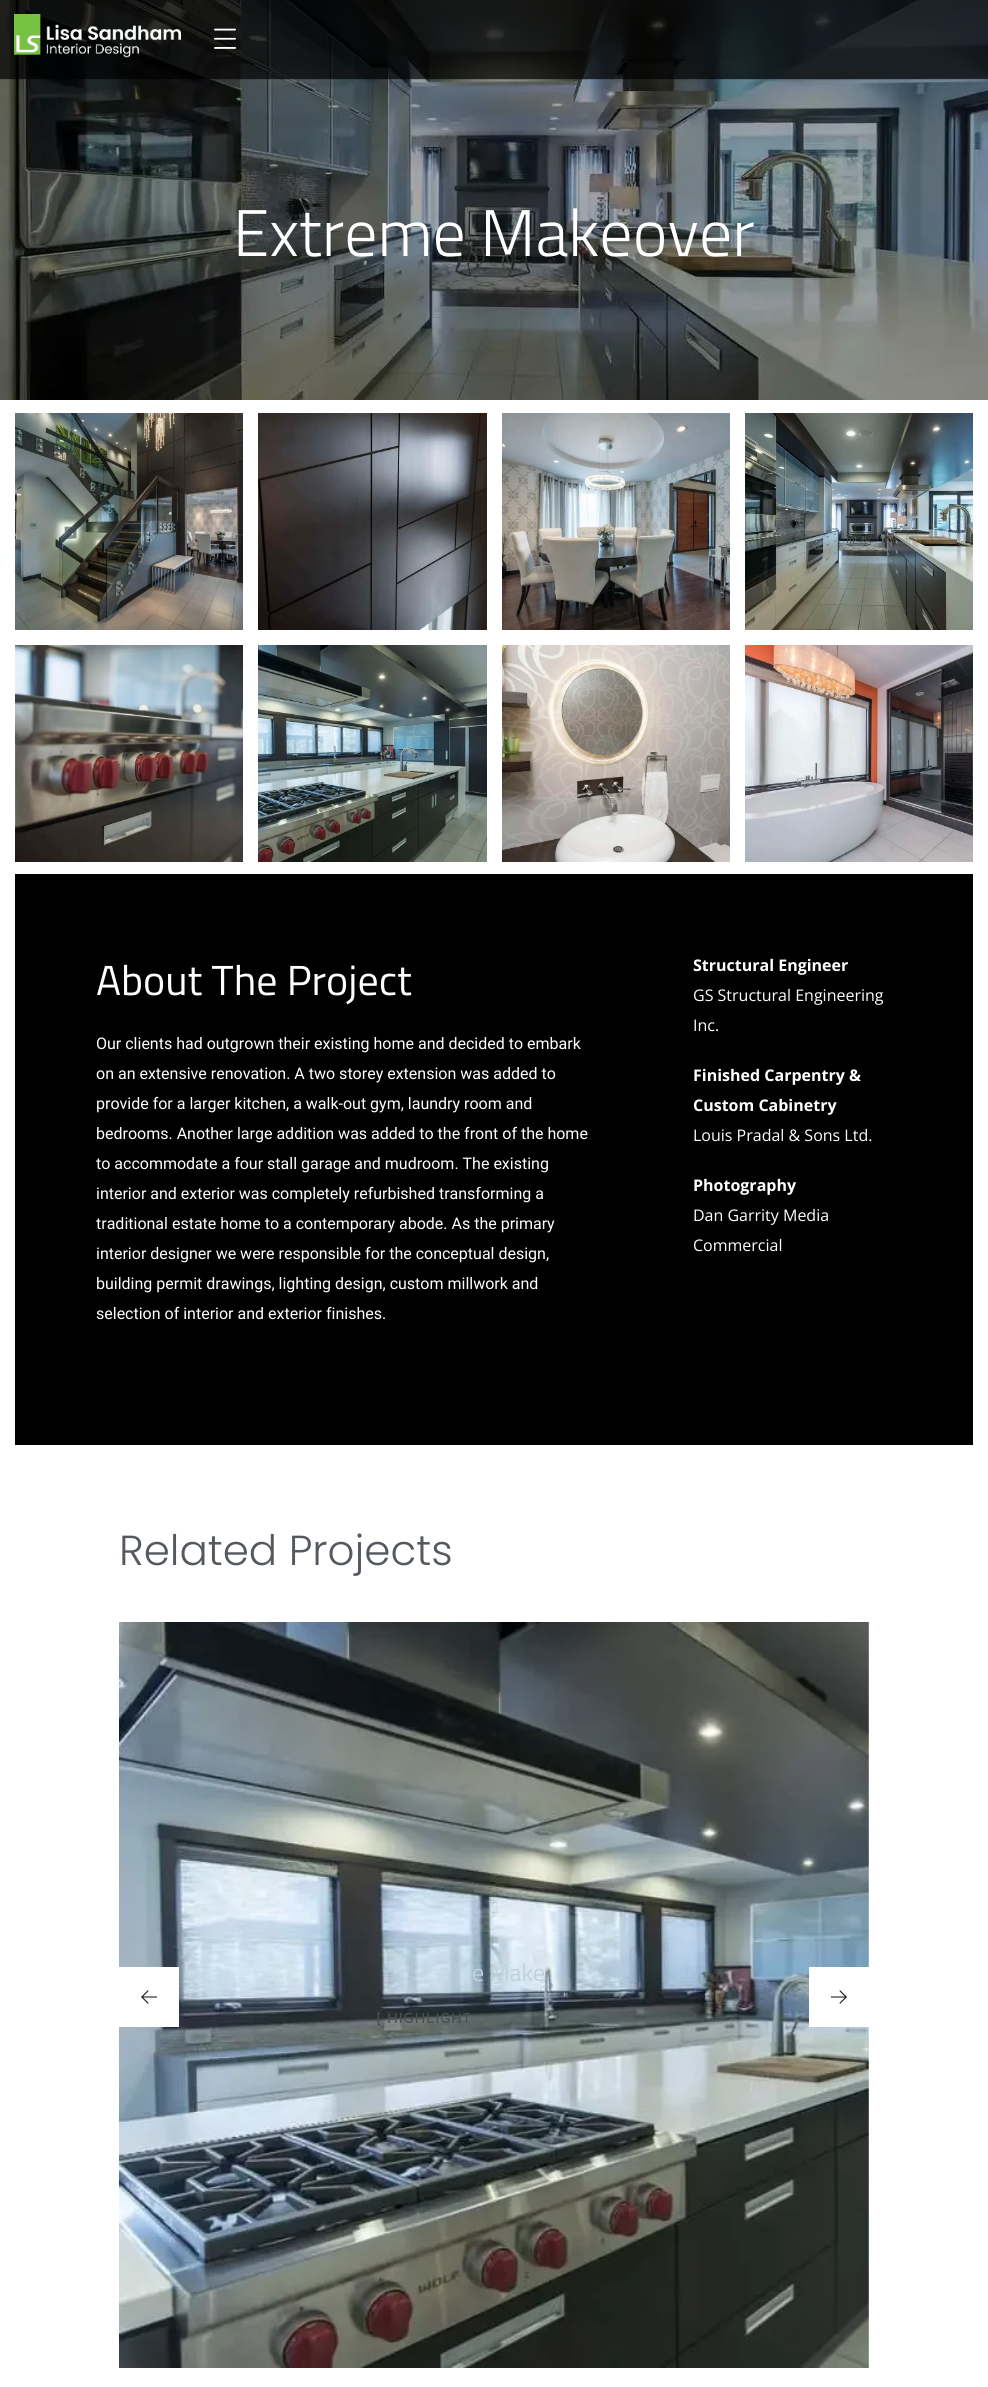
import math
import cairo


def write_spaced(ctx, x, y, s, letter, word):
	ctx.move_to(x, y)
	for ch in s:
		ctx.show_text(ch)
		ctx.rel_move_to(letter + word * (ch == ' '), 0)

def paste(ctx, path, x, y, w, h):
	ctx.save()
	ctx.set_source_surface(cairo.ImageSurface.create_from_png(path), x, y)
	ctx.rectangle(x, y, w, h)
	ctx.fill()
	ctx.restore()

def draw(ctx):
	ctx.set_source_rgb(1, 1, 1)
	ctx.paint()
	paste(ctx, 'media/3.png', 0, 0, 988, 400)
	ctx.set_source_rgba(0, 0, 0, 0.1)
	ctx.rectangle(0, 79, 988, 1)
	ctx.fill()
	ctx.set_source_rgba(0, 0, 0, 0.7)
	ctx.rectangle(0, 0, 988, 79)
	ctx.fill()
	paste(ctx, 'media/1.png', 14, 14, 167, 44)
	paste(ctx, 'media/2.png', 214, 28, 22, 21)
	ctx.select_font_face('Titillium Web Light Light')
	ctx.set_font_size(66)
	ctx.set_source_rgb(1, 1, 1)
	ctx.move_to(233, 256)
	ctx.show_text('Extreme Makeover')
	paste(ctx, 'media/4.png', 15, 413, 228, 217)
	paste(ctx, 'media/5.png', 258, 413, 229, 217)
	paste(ctx, 'media/6.png', 502, 413, 228, 217)
	paste(ctx, 'media/7.png', 745, 413, 228, 217)
	paste(ctx, 'media/8.png', 15, 645, 228, 217)
	paste(ctx, 'media/9.png', 258, 645, 229, 217)
	paste(ctx, 'media/10.png', 502, 645, 228, 217)
	paste(ctx, 'media/11.png', 745, 645, 228, 217)
	ctx.set_source_rgb(0, 0, 0)
	ctx.rectangle(15, 874, 958, 571)
	ctx.fill()
	ctx.select_font_face('Titillium Web')
	ctx.set_font_size(42)
	ctx.set_source_rgb(1, 1, 1)
	ctx.move_to(96, 995)
	ctx.show_text('About The Project')
	ctx.select_font_face('Roboto')
	ctx.set_font_size(16)
	for x, y, s in [
		(96, 1049, 'Our clients had outgrown their existing home and decided to embark'),
		(96, 1079, 'on an extensive renovation. A two storey extension was added to'),
		(96, 1109, 'provide for a larger kitchen, a walk-out gym, laundry room and'),
		(96, 1139, 'bedrooms. Another large addition was added to the front of the home'),
		(96, 1169, 'to accommodate a four stall garage and mudroom. The existing'),
		(96, 1199, 'interior and exterior was completely refurbished transforming a'),
		(96, 1229, 'traditional estate home to a contemporary abode. As the primary'),
		(96, 1259, 'interior designer we were responsible for the conceptual design,'),
		(96, 1289, 'building permit drawings, lighting design, custom millwork and'),
		(96, 1319, 'selection of interior and exterior finishes.'),
	]:
		ctx.move_to(x, y)
		ctx.show_text(s)
	ctx.select_font_face('Open Sans', cairo.FONT_SLANT_NORMAL, cairo.FONT_WEIGHT_BOLD)
	ctx.move_to(693, 971)
	ctx.show_text('Structural Engineer')
	ctx.select_font_face('Open Sans')
	ctx.move_to(693, 1001)
	ctx.show_text('GS Structural Engineering')
	ctx.move_to(693, 1031)
	ctx.show_text('Inc.')
	ctx.select_font_face('Open Sans', cairo.FONT_SLANT_NORMAL, cairo.FONT_WEIGHT_BOLD)
	ctx.move_to(693, 1081)
	ctx.show_text('Finished Carpentry &')
	ctx.move_to(693, 1111)
	ctx.show_text('Custom Cabinetry')
	ctx.select_font_face('Open Sans')
	ctx.move_to(693, 1141)
	ctx.show_text('Louis Pradal & Sons Ltd.')
	ctx.select_font_face('Open Sans', cairo.FONT_SLANT_NORMAL, cairo.FONT_WEIGHT_BOLD)
	ctx.move_to(693, 1191)
	ctx.show_text('Photography')
	ctx.select_font_face('Open Sans')
	ctx.move_to(693, 1221)
	ctx.show_text('Dan Garrity Media')
	ctx.move_to(693, 1251)
	ctx.show_text('Commercial')
	ctx.select_font_face('Poppins Light')
	ctx.set_font_size(42)
	ctx.set_source_rgb(0.329, 0.349, 0.373)
	ctx.move_to(119, 1565)
	ctx.show_text('Related Projects')
	paste(ctx, 'media/13.png', 119, 1622, 750, 746)
	ctx.set_source_rgb(1, 1, 1)
	ctx.rectangle(119, 1967, 60, 60)
	ctx.fill()
	paste(ctx, 'media/12.png', 141, 1990, 16, 14)
	ctx.select_font_face('Titillium Web')
	ctx.set_font_size(24)
	ctx.set_source_rgb(0.745, 0.82, 0.867)
	ctx.move_to(472, 1981)
	ctx.show_text('e Make')
	ctx.select_font_face('Josefin Sans Medium')
	ctx.set_font_size(14)
	ctx.set_source_rgb(0.282, 0.31, 0.318)
	write_spaced(ctx, 376, 2023, '[', 0.5, 0)
	write_spaced(ctx, 387, 2023, 'HIGHLIGHT', 0.5, 0)
	ctx.set_source_rgb(1, 1, 1)
	ctx.rectangle(809, 1967, 60, 60)
	ctx.fill()
	paste(ctx, 'media/14.png', 831, 1990, 16, 14)


surface = cairo.ImageSurface(cairo.FORMAT_RGB24, 988, 2387)
ctx = cairo.Context(surface)
options = cairo.FontOptions()
options.set_hint_metrics(cairo.HINT_METRICS_OFF)
options.set_hint_style(cairo.HINT_STYLE_NONE)
ctx.set_font_options(options)
ctx.set_miter_limit(4)
draw(ctx)
surface.write_to_png('image.png')
